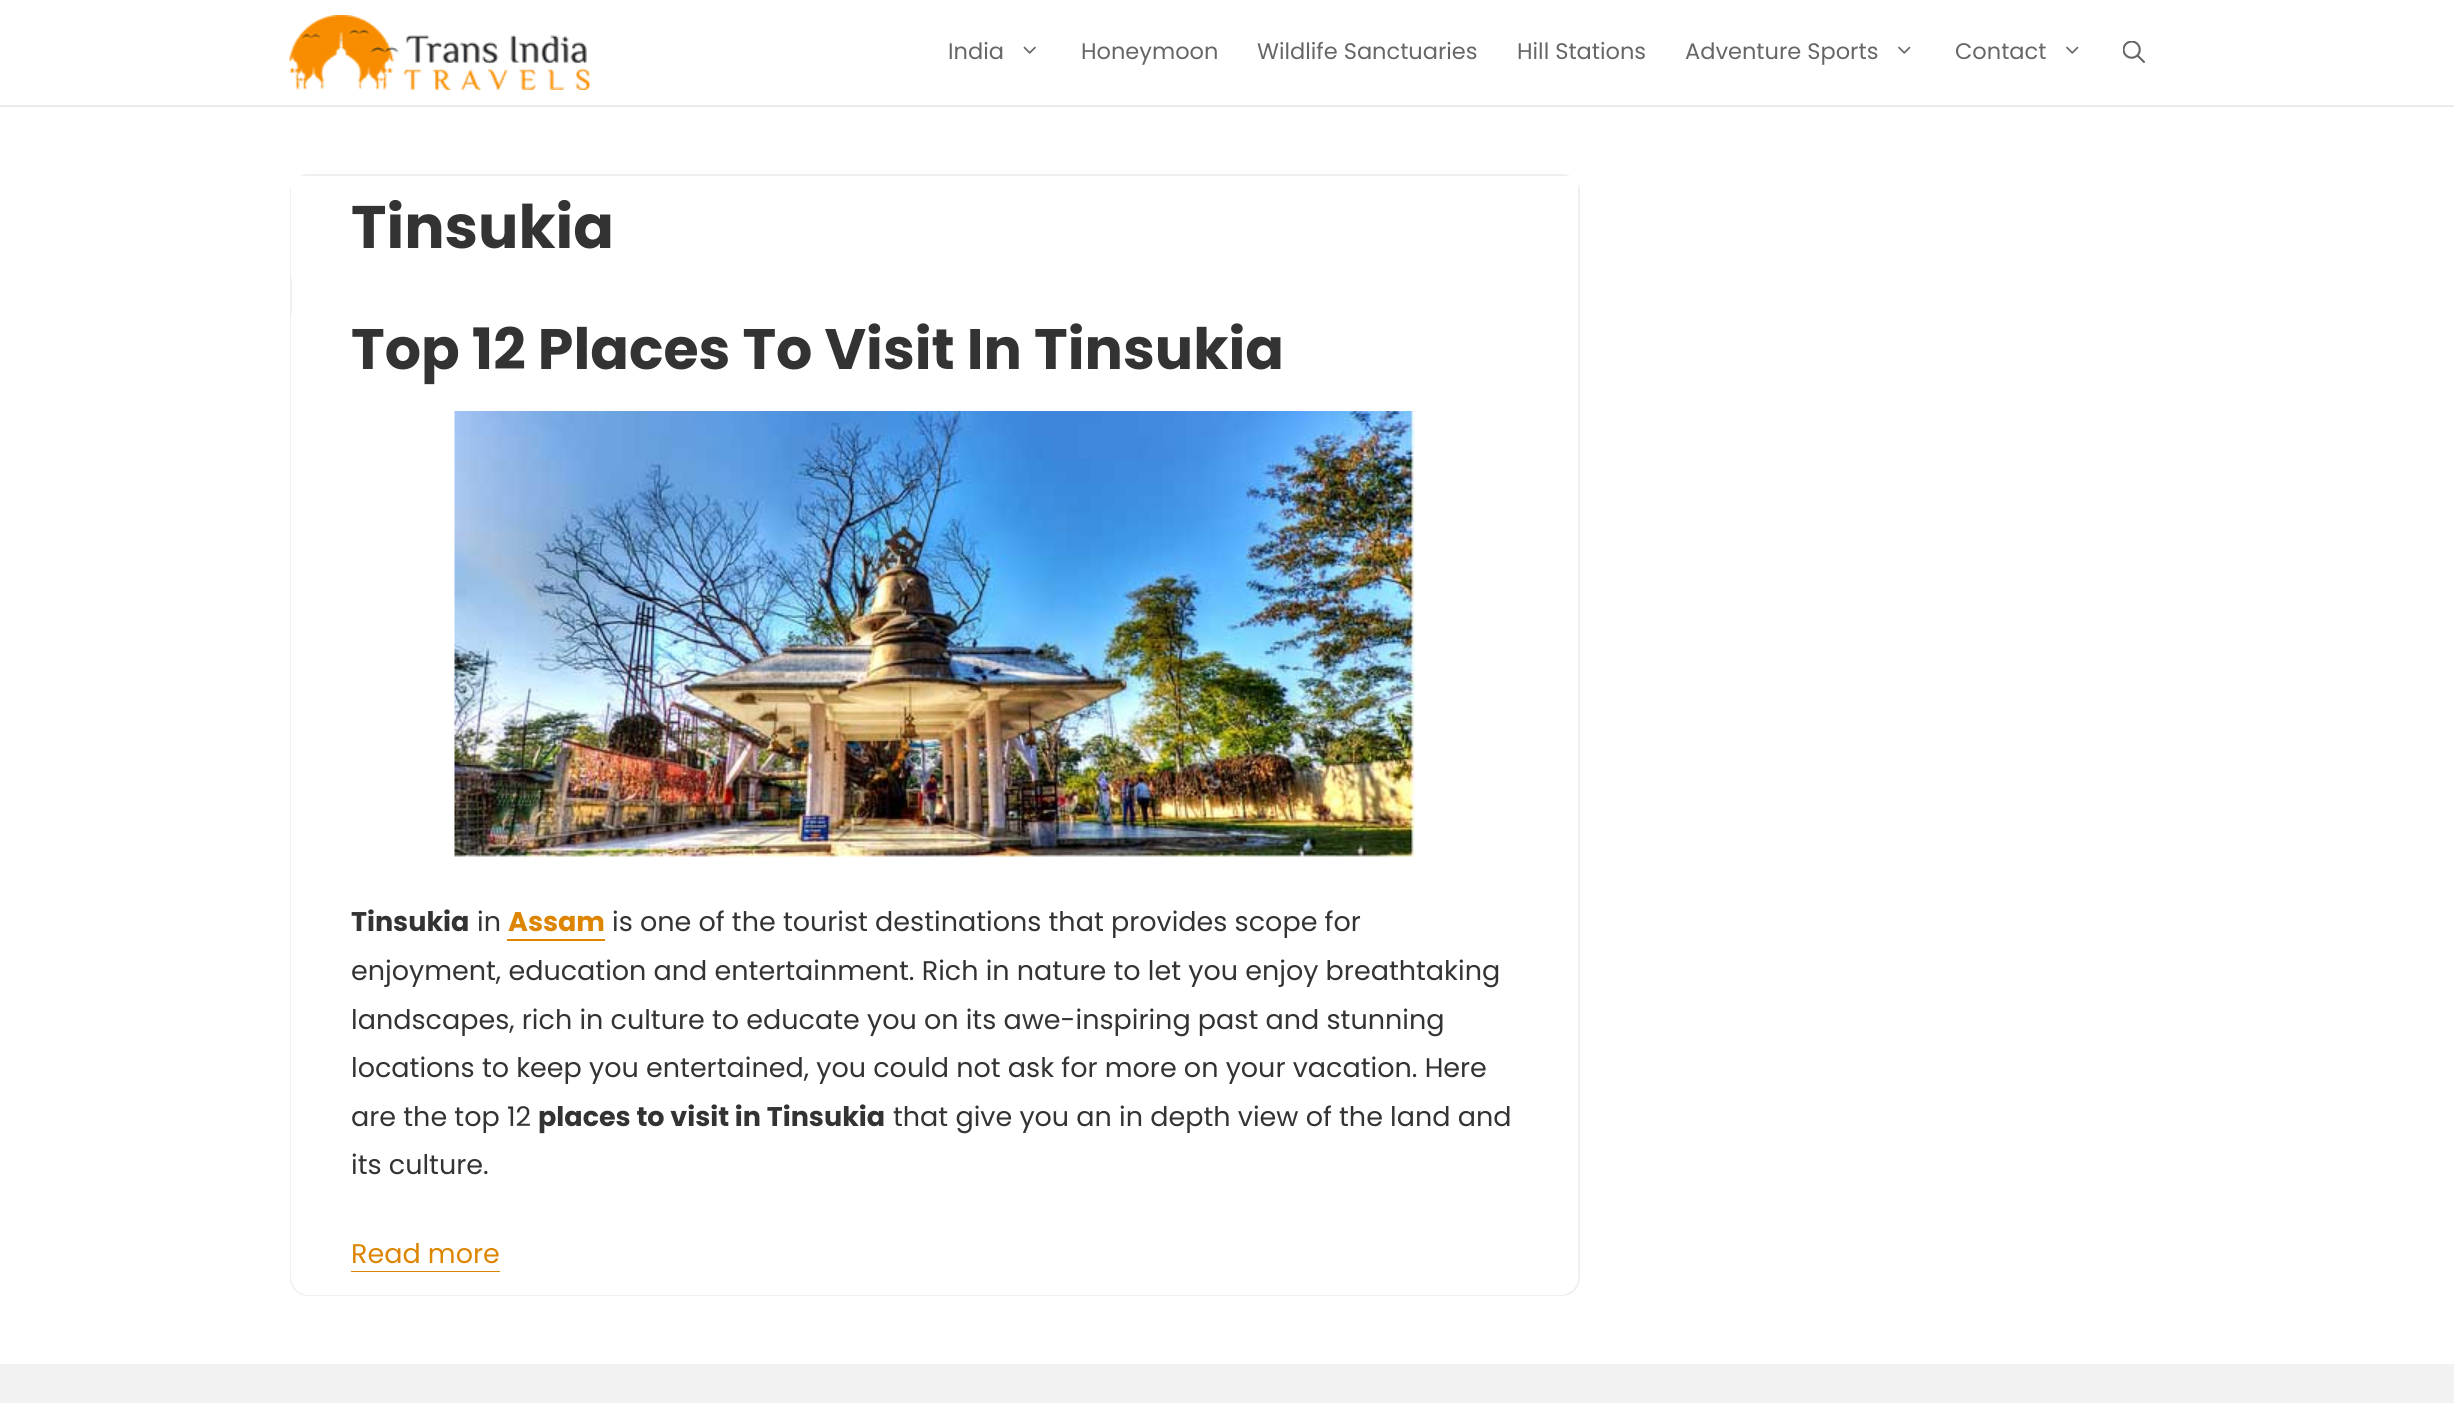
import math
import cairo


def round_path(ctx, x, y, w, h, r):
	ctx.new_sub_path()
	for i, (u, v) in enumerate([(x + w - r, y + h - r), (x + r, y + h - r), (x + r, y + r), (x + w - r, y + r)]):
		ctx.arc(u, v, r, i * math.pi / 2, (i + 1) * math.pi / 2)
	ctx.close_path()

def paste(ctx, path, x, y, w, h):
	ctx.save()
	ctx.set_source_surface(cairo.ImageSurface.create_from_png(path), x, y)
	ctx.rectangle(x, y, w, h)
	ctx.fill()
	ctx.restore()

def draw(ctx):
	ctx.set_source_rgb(1, 1, 1)
	ctx.paint()
	ctx.set_source_rgb(0.918, 0.918, 0.918)
	ctx.rectangle(0, 105, 2454, 2)
	ctx.fill()
	paste(ctx, 'media/1.png', 289, 15, 301, 75)
	ctx.select_font_face('Poppins')
	ctx.set_font_size(22.5)
	ctx.set_source_rgb(0.4, 0.4, 0.4)
	ctx.move_to(948, 59)
	ctx.show_text('India')
	paste(ctx, 'media/2.png', 1023, 46, 13, 8)
	for x, y, s in [
		(1081, 59, 'Honeymoon'),
		(1257, 59, 'Wildlife Sanctuaries'),
		(1517, 59, 'Hill Stations'),
		(1685, 59, 'Adventure Sports'),
	]:
		ctx.move_to(x, y)
		ctx.show_text(s)
	paste(ctx, 'media/3.png', 1898, 46, 13, 8)
	ctx.move_to(1955, 59)
	ctx.show_text('Contact')
	paste(ctx, 'media/3.png', 2066, 46, 13, 8)
	paste(ctx, 'media/4.png', 2123, 41, 22, 22)
	round_path(ctx, 291, 175, 1288, 1120, 17)
	ctx.set_source_rgb(0.941, 0.937, 0.937)
	ctx.stroke()
	ctx.set_source_rgb(1, 1, 1)
	ctx.rectangle(291, 176, 1287, 102)
	ctx.fill()
	ctx.select_font_face('Poppins', cairo.FONT_SLANT_NORMAL, cairo.FONT_WEIGHT_BOLD)
	ctx.set_font_size(60)
	ctx.set_source_rgb(0.2, 0.2, 0.2)
	ctx.move_to(351, 248)
	ctx.show_text('Tinsukia')
	ctx.set_source_rgb(1, 1, 1)
	round_path(ctx, 291, 300, 1287, 995, 18)
	ctx.fill()
	ctx.set_font_size(57)
	ctx.set_source_rgb(0.2, 0.2, 0.2)
	ctx.move_to(351, 369)
	ctx.show_text('Top 12 Places To Visit In Tinsukia')
	paste(ctx, 'media/5.png', 454, 411, 961, 446)
	ctx.set_font_size(27)
	ctx.move_to(351, 931)
	ctx.show_text('Tinsukia')
	ctx.select_font_face('Poppins')
	ctx.move_to(477, 931)
	ctx.show_text('in')
	ctx.select_font_face('Poppins', cairo.FONT_SLANT_NORMAL, cairo.FONT_WEIGHT_BOLD)
	ctx.set_source_rgb(0.867, 0.522, 0)
	ctx.move_to(508, 931)
	ctx.show_text('Assam')
	ctx.rectangle(507, 939, 98, 2)
	ctx.fill()
	ctx.select_font_face('Poppins')
	ctx.set_source_rgb(0.2, 0.2, 0.2)
	for x, y, s in [
		(612, 931, 'is one of the tourist destinations that provides scope for'),
		(351, 980, 'enjoyment, education and entertainment. Rich in nature to let you enjoy breathtaking'),
		(351, 1029, 'landscapes, rich in culture to educate you on its awe-inspiring past and stunning'),
		(351, 1077, 'locations to keep you entertained, you could not ask for more on your vacation. Here'),
		(351, 1126, 'are the top 12'),
	]:
		ctx.move_to(x, y)
		ctx.show_text(s)
	ctx.select_font_face('Poppins', cairo.FONT_SLANT_NORMAL, cairo.FONT_WEIGHT_BOLD)
	ctx.move_to(538, 1126)
	ctx.show_text('places to visit in Tinsukia')
	ctx.select_font_face('Poppins')
	ctx.move_to(893, 1126)
	ctx.show_text('that give you an in depth view of the land and')
	ctx.move_to(351, 1174)
	ctx.show_text('its culture.')
	ctx.set_source_rgb(0.867, 0.522, 0)
	ctx.move_to(351, 1263)
	ctx.show_text('Read more')
	ctx.rectangle(351, 1271, 149, 1)
	ctx.fill()
	ctx.set_source_rgb(0.949, 0.949, 0.949)
	ctx.rectangle(0, 1364, 2454, 39)
	ctx.fill()


surface = cairo.ImageSurface(cairo.FORMAT_RGB24, 2454, 1403)
ctx = cairo.Context(surface)
options = cairo.FontOptions()
options.set_hint_metrics(cairo.HINT_METRICS_OFF)
options.set_hint_style(cairo.HINT_STYLE_NONE)
ctx.set_font_options(options)
ctx.set_miter_limit(4)
draw(ctx)
surface.write_to_png('image.png')
